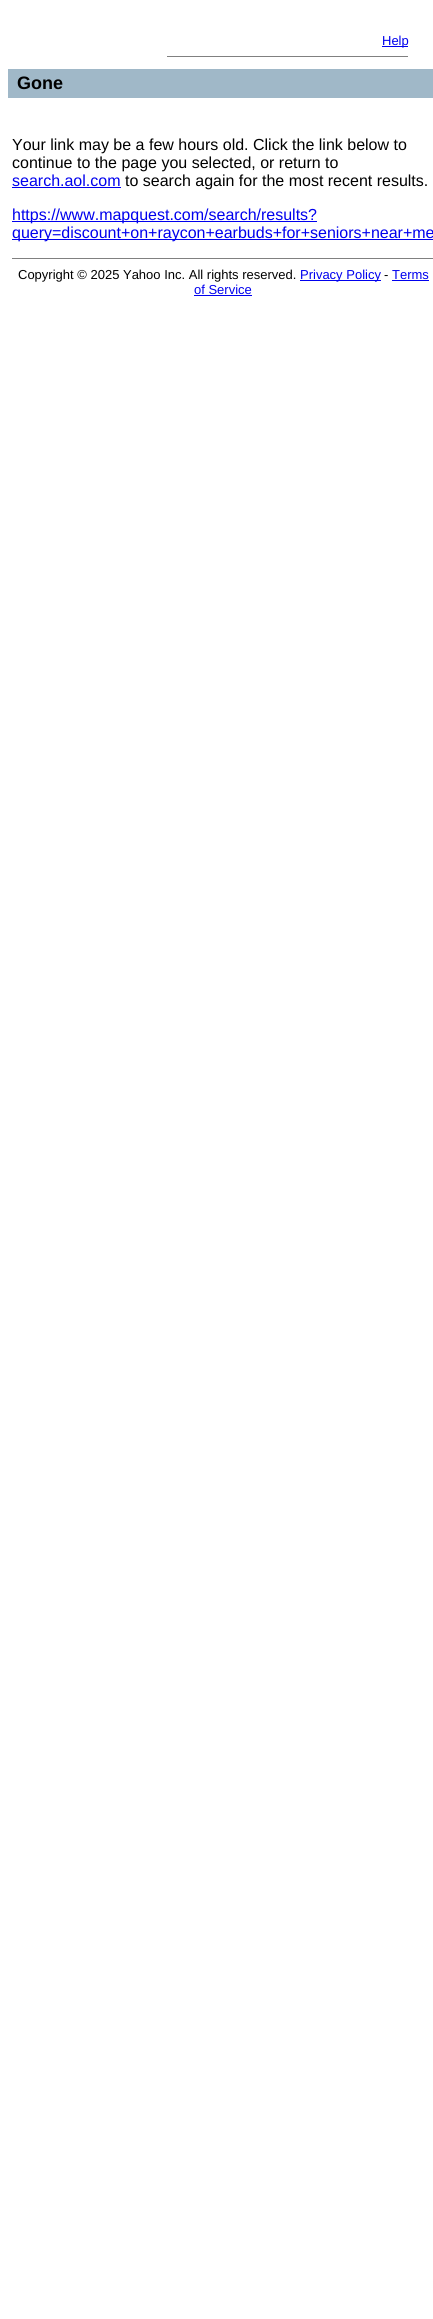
import math
import cairo


def draw(ctx):
	ctx.set_source_rgb(1, 1, 1)
	ctx.paint()
	ctx.set_source_rgb(0, 0, 0.933)
	ctx.rectangle(382, 46, 26, 1)
	ctx.fill()
	ctx.select_font_face('Liberation Sans')
	ctx.set_font_size(13)
	ctx.move_to(382, 45)
	ctx.show_text('Help')
	ctx.set_source_rgb(0.502, 0.502, 0.502)
	ctx.rectangle(167, 56, 241, 1)
	ctx.fill()
	ctx.set_source_rgb(0.627, 0.722, 0.784)
	ctx.rectangle(8, 69, 425, 29)
	ctx.fill()
	ctx.select_font_face('Liberation Sans', cairo.FONT_SLANT_NORMAL, cairo.FONT_WEIGHT_BOLD)
	ctx.set_font_size(18)
	ctx.set_source_rgb(0, 0, 0)
	ctx.move_to(17, 89)
	ctx.show_text('Gone')
	ctx.select_font_face('Liberation Sans')
	ctx.set_font_size(16)
	ctx.move_to(12, 150)
	ctx.show_text('Your link may be a few hours old. Click the link below to')
	ctx.move_to(12, 168)
	ctx.show_text('continue to the page you selected, or return to')
	ctx.set_source_rgb(0, 0, 0.933)
	ctx.move_to(12, 186)
	ctx.show_text('search.aol.com')
	ctx.rectangle(12, 187, 109, 1)
	ctx.fill()
	ctx.set_source_rgb(0, 0, 0)
	ctx.move_to(125, 186)
	ctx.show_text('to search again for the most recent results.')
	ctx.set_source_rgb(0, 0, 0.933)
	ctx.rectangle(12, 221, 305, 1)
	ctx.fill()
	ctx.move_to(12, 220)
	ctx.show_text('https://www.mapquest.com/search/results?')
	ctx.rectangle(12, 239, 421, 1)
	ctx.fill()
	ctx.move_to(12, 238)
	ctx.show_text('query=discount+on+raycon+earbuds+for+seniors+near+me')
	ctx.set_source_rgb(0.502, 0.502, 0.502)
	ctx.rectangle(12, 258, 421, 1)
	ctx.fill()
	ctx.set_font_size(13)
	ctx.set_source_rgb(0, 0, 0)
	ctx.move_to(18, 279)
	ctx.show_text('Copyright © 2025 Yahoo Inc. All rights reserved.')
	ctx.set_source_rgb(0, 0, 0.933)
	ctx.rectangle(300, 280, 81, 1)
	ctx.fill()
	ctx.move_to(300, 279)
	ctx.show_text('Privacy Policy')
	ctx.set_source_rgb(0, 0, 0)
	ctx.move_to(384, 279)
	ctx.show_text('-')
	ctx.set_source_rgb(0, 0, 0.933)
	ctx.move_to(392, 279)
	ctx.show_text('Terms')
	ctx.rectangle(392, 280, 37, 1)
	ctx.fill()
	ctx.move_to(194, 294)
	ctx.show_text('of Service')
	ctx.rectangle(194, 295, 58, 1)
	ctx.fill()


surface = cairo.ImageSurface(cairo.FORMAT_RGB24, 433, 2319)
ctx = cairo.Context(surface)
options = cairo.FontOptions()
options.set_hint_metrics(cairo.HINT_METRICS_OFF)
options.set_hint_style(cairo.HINT_STYLE_NONE)
ctx.set_font_options(options)
ctx.set_miter_limit(4)
draw(ctx)
surface.write_to_png('image.png')
